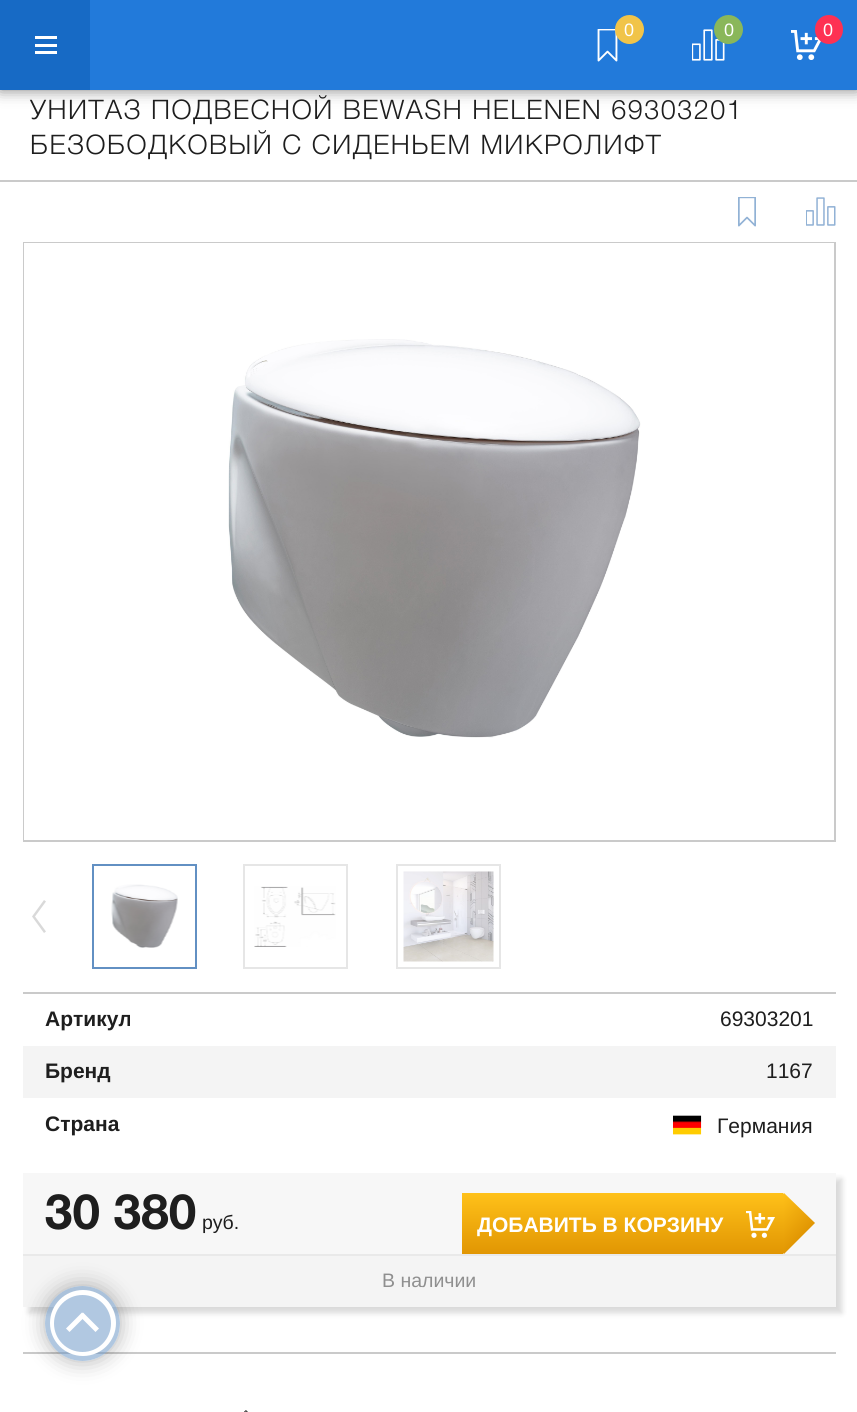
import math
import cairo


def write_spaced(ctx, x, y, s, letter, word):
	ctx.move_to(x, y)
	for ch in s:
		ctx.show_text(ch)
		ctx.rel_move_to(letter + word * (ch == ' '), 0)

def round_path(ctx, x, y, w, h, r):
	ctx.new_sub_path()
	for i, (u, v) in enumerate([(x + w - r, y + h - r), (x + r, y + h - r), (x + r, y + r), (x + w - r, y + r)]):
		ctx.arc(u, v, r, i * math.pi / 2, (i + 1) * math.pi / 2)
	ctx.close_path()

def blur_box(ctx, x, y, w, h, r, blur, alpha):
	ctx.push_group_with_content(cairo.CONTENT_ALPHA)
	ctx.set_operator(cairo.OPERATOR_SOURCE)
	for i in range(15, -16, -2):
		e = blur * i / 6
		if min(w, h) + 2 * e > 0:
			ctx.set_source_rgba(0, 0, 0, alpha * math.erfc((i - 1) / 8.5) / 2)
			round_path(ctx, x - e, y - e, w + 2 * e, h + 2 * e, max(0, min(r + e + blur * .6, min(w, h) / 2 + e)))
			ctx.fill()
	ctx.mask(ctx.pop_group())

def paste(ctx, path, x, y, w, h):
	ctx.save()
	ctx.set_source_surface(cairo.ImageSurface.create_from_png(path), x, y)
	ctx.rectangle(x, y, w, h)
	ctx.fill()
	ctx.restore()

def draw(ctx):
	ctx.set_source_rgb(1, 1, 1)
	ctx.paint()
	ctx.set_source_rgb(0, 0, 0)
	blur_box(ctx, 0, 0, 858, 90, 0, 7.5, 0.5)
	ctx.set_source_rgb(0.133, 0.478, 0.855)
	ctx.rectangle(90, 0, 767, 90)
	ctx.fill()
	ctx.set_source_rgb(0.09, 0.416, 0.773)
	ctx.rectangle(0, 0, 90, 90)
	ctx.fill()
	ctx.set_source_rgb(1, 1, 1)
	ctx.rectangle(35, 36, 22, 3)
	ctx.rectangle(35, 44, 22, 3)
	ctx.rectangle(35, 51, 22, 3)
	ctx.fill()
	paste(ctx, 'media/1.png', 597, 29, 21, 33)
	ctx.set_source_rgb(0.945, 0.769, 0.286)
	ctx.arc(629.5, 29.5, 14.5, 0, 2 * math.pi)
	ctx.fill()
	ctx.select_font_face('Arimo')
	ctx.set_font_size(18)
	ctx.set_source_rgb(1, 1, 1)
	ctx.move_to(624, 36)
	ctx.show_text('0')
	paste(ctx, 'media/2.png', 692, 29, 33, 32)
	ctx.set_source_rgb(0.541, 0.718, 0.353)
	ctx.arc(728.5, 29.5, 14.5, 0, 2 * math.pi)
	ctx.fill()
	ctx.set_source_rgb(1, 1, 1)
	ctx.move_to(724, 36)
	ctx.show_text('0')
	paste(ctx, 'media/3.png', 791, 30, 30, 30)
	ctx.set_source_rgb(0.996, 0.192, 0.325)
	round_path(ctx, 815, 15, 28, 29, 14)
	ctx.fill()
	ctx.set_source_rgb(1, 1, 1)
	ctx.move_to(823, 36)
	ctx.show_text('0')
	ctx.set_source_rgb(0.792, 0.792, 0.792)
	ctx.rectangle(0, 180, 857, 2)
	ctx.fill()
	ctx.select_font_face('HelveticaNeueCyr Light')
	ctx.set_font_size(27)
	ctx.set_source_rgb(0.118, 0.118, 0.118)
	write_spaced(ctx, 30, 119, 'УНИТАЗ ПОДВЕСНОЙ BEWASH HELENEN 69303201', 1.5, 0)
	write_spaced(ctx, 30, 154, 'БЕЗОБОДКОВЫЙ С СИДЕНЬЕМ МИКРОЛИФТ', 1.5, 0)
	paste(ctx, 'media/4.png', 738, 197, 18, 30)
	paste(ctx, 'media/5.png', 806, 197, 30, 29)
	ctx.rectangle(24, 243, 811, 598)
	ctx.set_source_rgb(0.792, 0.792, 0.792)
	ctx.stroke()
	ctx.set_source_rgb(1, 1, 1)
	ctx.rectangle(24, 243, 810, 597)
	ctx.fill()
	paste(ctx, 'media/6.png', 228, 339, 413, 399)
	ctx.set_source_rgb(0.851, 0.851, 0.851)
	ctx.new_path()
	ctx.move_to(46, 901.5)
	ctx.line_to(44, 900)
	ctx.line_to(32, 916.5)
	ctx.line_to(44, 933)
	ctx.line_to(46, 931.5)
	ctx.line_to(35, 916.5)
	ctx.close_path()
	ctx.fill()
	ctx.rectangle(93, 865, 103, 103)
	ctx.set_source_rgb(0.384, 0.565, 0.765)
	ctx.stroke()
	paste(ctx, 'media/7.png', 111, 884, 67, 64)
	ctx.rectangle(244, 865, 103, 103)
	ctx.set_source_rgb(0.902, 0.902, 0.902)
	ctx.stroke()
	paste(ctx, 'media/8.png', 254, 886, 82, 61)
	ctx.rectangle(397, 865, 103, 103)
	ctx.stroke()
	paste(ctx, 'media/9.png', 403, 871, 91, 91)
	ctx.set_source_rgb(0.792, 0.792, 0.792)
	ctx.rectangle(23, 992, 813, 2)
	ctx.fill()
	ctx.select_font_face('Arimo', cairo.FONT_SLANT_NORMAL, cairo.FONT_WEIGHT_BOLD)
	ctx.set_font_size(21)
	ctx.set_source_rgb(0.118, 0.118, 0.118)
	ctx.move_to(45, 1026)
	ctx.show_text('Артикул')
	ctx.select_font_face('Arimo')
	ctx.move_to(720, 1026)
	ctx.show_text('69303201')
	ctx.set_source_rgb(0.957, 0.957, 0.957)
	ctx.rectangle(23, 1046, 813, 52)
	ctx.fill()
	ctx.select_font_face('Arimo', cairo.FONT_SLANT_NORMAL, cairo.FONT_WEIGHT_BOLD)
	ctx.set_source_rgb(0.118, 0.118, 0.118)
	ctx.move_to(45, 1078)
	ctx.show_text('Бренд')
	ctx.select_font_face('Arimo')
	ctx.move_to(766, 1078)
	ctx.show_text('1167')
	ctx.select_font_face('Arimo', cairo.FONT_SLANT_NORMAL, cairo.FONT_WEIGHT_BOLD)
	ctx.move_to(45, 1131)
	ctx.show_text('Страна')
	paste(ctx, 'media/10.png', 673, 1115, 29, 20)
	ctx.select_font_face('Arimo')
	ctx.move_to(717, 1133)
	ctx.show_text('Германия')
	ctx.set_source_rgb(0.792, 0.792, 0.792)
	ctx.rectangle(23, 1352, 813, 2)
	ctx.fill()
	ctx.set_source_rgb(0, 0, 0)
	blur_box(ctx, 29, 1179, 813, 134, 0, 3, 0.15)
	ctx.set_source_rgb(0.965, 0.965, 0.965)
	ctx.rectangle(23, 1173, 813, 81)
	ctx.fill()
	ctx.set_source_rgb(0.914, 0.914, 0.914)
	ctx.rectangle(23, 1254, 813, 2)
	ctx.fill()
	ctx.select_font_face('HelveticaNeueCyr', cairo.FONT_SLANT_NORMAL, cairo.FONT_WEIGHT_BOLD)
	ctx.set_font_size(49.5)
	ctx.set_source_rgb(0.118, 0.118, 0.118)
	ctx.move_to(45, 1229)
	ctx.show_text('30 380')
	ctx.select_font_face('Arimo')
	ctx.set_font_size(19.5)
	ctx.move_to(202, 1229)
	ctx.show_text('руб.')
	gradient = cairo.LinearGradient(768, 1208, 799, 1239)
	gradient.add_color_stop_rgba(0, 1, 0.757, 0.098, 1)
	gradient.add_color_stop_rgba(1, 0.882, 0.588, 0.012, 1)
	ctx.set_source(gradient)
	ctx.new_path()
	ctx.move_to(753, 1223)
	ctx.line_to(784, 1193)
	ctx.line_to(815, 1223)
	ctx.line_to(784, 1254)
	ctx.close_path()
	ctx.fill()
	gradient = cairo.LinearGradient(623, 1193, 623, 1254)
	gradient.add_color_stop_rgba(0, 1, 0.757, 0.098, 1)
	gradient.add_color_stop_rgba(1, 0.882, 0.588, 0.012, 1)
	ctx.set_source(gradient)
	ctx.rectangle(462, 1193, 321, 61)
	ctx.fill()
	ctx.select_font_face('Arimo', cairo.FONT_SLANT_NORMAL, cairo.FONT_WEIGHT_BOLD)
	ctx.set_font_size(21)
	ctx.set_source_rgb(1, 1, 1)
	ctx.move_to(477, 1232)
	ctx.show_text('ДОБАВИТЬ В КОРЗИНУ')
	paste(ctx, 'media/11.png', 746, 1211, 29, 27)
	ctx.set_source_rgb(0.957, 0.957, 0.957)
	ctx.rectangle(23, 1256, 813, 51)
	ctx.fill()
	ctx.select_font_face('Arimo')
	ctx.set_font_size(19.5)
	ctx.set_source_rgb(0.561, 0.561, 0.561)
	ctx.move_to(382, 1287)
	ctx.show_text('В наличии')
	paste(ctx, 'media/12.png', 244, 1410, 4, 2)
	ctx.save()
	ctx.set_fill_rule(cairo.FILL_RULE_EVEN_ODD)
	ctx.new_path()
	ctx.move_to(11, 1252)
	ctx.line_to(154, 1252)
	ctx.line_to(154, 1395)
	ctx.line_to(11, 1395)
	ctx.close_path()
	ctx.move_to(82.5, 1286)
	ctx.curve_to(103, 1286, 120, 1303, 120, 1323.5)
	ctx.curve_to(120, 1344, 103, 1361, 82.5, 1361)
	ctx.curve_to(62, 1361, 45, 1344, 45, 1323.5)
	ctx.curve_to(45, 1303, 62, 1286, 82.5, 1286)
	ctx.close_path()
	ctx.clip()
	ctx.set_source_rgb(0, 0, 0)
	blur_box(ctx, 45, 1286, 75, 75, 37.5, 11, 0.3)
	ctx.restore()
	ctx.set_source_rgba(0.384, 0.565, 0.765, 0.5)
	ctx.arc(82.5, 1323.5, 37.5, 0, 2 * math.pi)
	ctx.fill()
	ctx.set_source_rgb(1, 1, 1)
	ctx.arc(83, 1323, 33, 0, 2 * math.pi)
	ctx.fill()
	ctx.set_source_rgb(0.694, 0.784, 0.882)
	ctx.arc(82.5, 1323.5, 28.5, 0, 2 * math.pi)
	ctx.fill()
	ctx.set_source_rgb(1, 1, 1)
	ctx.new_path()
	ctx.move_to(82, 1312.5)
	ctx.line_to(85.5, 1316)
	ctx.line_to(69.5, 1332)
	ctx.line_to(66, 1328.5)
	ctx.close_path()
	ctx.fill()
	ctx.new_path()
	ctx.move_to(79.5, 1316)
	ctx.line_to(83, 1312.5)
	ctx.line_to(99, 1328.5)
	ctx.line_to(95.5, 1332)
	ctx.close_path()
	ctx.fill()


surface = cairo.ImageSurface(cairo.FORMAT_RGB24, 857, 1412)
ctx = cairo.Context(surface)
options = cairo.FontOptions()
options.set_hint_metrics(cairo.HINT_METRICS_OFF)
options.set_hint_style(cairo.HINT_STYLE_NONE)
ctx.set_font_options(options)
ctx.set_miter_limit(4)
draw(ctx)
surface.write_to_png('image.png')
